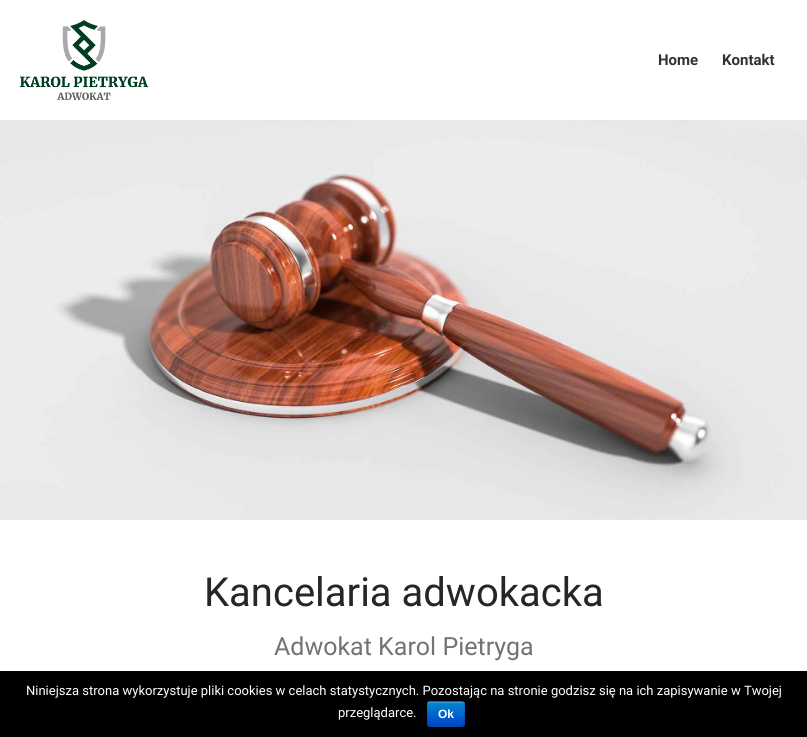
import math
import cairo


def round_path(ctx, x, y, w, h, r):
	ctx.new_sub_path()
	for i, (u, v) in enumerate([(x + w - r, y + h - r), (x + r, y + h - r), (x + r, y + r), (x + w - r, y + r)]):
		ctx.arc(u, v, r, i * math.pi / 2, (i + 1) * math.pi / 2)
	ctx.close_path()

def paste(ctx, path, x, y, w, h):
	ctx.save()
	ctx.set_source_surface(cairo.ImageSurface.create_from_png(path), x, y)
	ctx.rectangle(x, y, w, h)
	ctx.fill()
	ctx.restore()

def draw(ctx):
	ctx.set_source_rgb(1, 1, 1)
	ctx.paint()
	paste(ctx, 'media/1.png', 20, 20, 128, 80)
	ctx.select_font_face('Roboto', cairo.FONT_SLANT_NORMAL, cairo.FONT_WEIGHT_BOLD)
	ctx.set_font_size(15)
	ctx.set_source_rgb(0.196, 0.196, 0.196)
	ctx.move_to(658, 65)
	ctx.show_text('Home')
	ctx.move_to(722, 65)
	ctx.show_text('Kontakt')
	paste(ctx, 'media/2.png', 0, 120, 807, 400)
	ctx.select_font_face('Roboto')
	ctx.set_font_size(40)
	ctx.set_source_rgb(0.149, 0.149, 0.149)
	ctx.move_to(204, 606)
	ctx.show_text('Kancelaria adwokacka')
	ctx.set_font_size(25)
	ctx.set_source_rgb(0.451, 0.451, 0.451)
	ctx.move_to(274, 655)
	ctx.show_text('Adwokat Karol Pietryga')
	ctx.set_source_rgb(0, 0, 0)
	ctx.rectangle(0, 671, 807, 66)
	ctx.fill()
	ctx.set_font_size(13)
	ctx.set_source_rgb(1, 1, 1)
	ctx.move_to(26, 695)
	ctx.show_text('Niniejsza strona wykorzystuje pliki cookies w celach statystycznych. Pozostając na stronie godzisz się na ich zapisywanie w Twojej')
	ctx.move_to(338, 717)
	ctx.show_text('przeglądarce.')
	ctx.set_source_rgb(0, 0.427, 0.8)
	round_path(ctx, 427, 701, 38, 26, 3)
	ctx.fill()
	ctx.save()
	round_path(ctx, 427, 701, 38, 26, 3)
	ctx.clip()
	gradient = cairo.LinearGradient(446, 702, 446, 726)
	gradient.add_color_stop_rgba(0, 0, 0.533, 0.8, 1)
	gradient.add_color_stop_rgba(1, 0, 0.267, 0.8, 1)
	ctx.set_source(gradient)
	ctx.rectangle(427, 702, 38, 24)
	ctx.fill()
	ctx.restore()
	ctx.set_source_rgba(1, 1, 1, 0.2)
	ctx.new_path()
	ctx.move_to(430, 703)
	ctx.line_to(462, 703)
	ctx.curve_to(463, 703, 464, 704, 464, 705)
	ctx.curve_to(464, 700.5, 460.5, 702, 456.5, 702)
	ctx.line_to(435.5, 702)
	ctx.curve_to(431.5, 702, 428, 700.5, 428, 705)
	ctx.curve_to(428, 704, 429, 703, 430, 703)
	ctx.close_path()
	ctx.fill()
	ctx.new_path()
	ctx.move_to(464, 726)
	ctx.curve_to(463.5, 726, 462.5, 726.5, 462, 726.5)
	ctx.line_to(430, 726.5)
	ctx.curve_to(429.5, 726.5, 428.5, 726, 428, 726)
	ctx.set_source_rgba(0, 0, 0, 0.25)
	ctx.set_line_width(1)
	ctx.stroke()
	ctx.new_path()
	ctx.move_to(428, 726)
	ctx.curve_to(428, 725.5, 427.5, 724.5, 427.5, 724)
	ctx.line_to(427.5, 704)
	ctx.curve_to(427.5, 703.5, 428, 702.5, 428, 702)
	ctx.curve_to(428.5, 702, 429.5, 701.5, 430, 701.5)
	ctx.line_to(462, 701.5)
	ctx.curve_to(462.5, 701.5, 463.5, 702, 464, 702)
	ctx.curve_to(464, 702.5, 464.5, 703.5, 464.5, 704)
	ctx.line_to(464.5, 724)
	ctx.curve_to(464.5, 724.5, 464, 725.5, 464, 726)
	ctx.set_source_rgba(0, 0, 0, 0.1)
	ctx.stroke()
	ctx.select_font_face('Liberation Sans', cairo.FONT_SLANT_NORMAL, cairo.FONT_WEIGHT_BOLD)
	ctx.set_font_size(12)
	ctx.set_source_rgb(1, 1, 1)
	ctx.move_to(438, 718)
	ctx.show_text('Ok')


surface = cairo.ImageSurface(cairo.FORMAT_RGB24, 807, 737)
ctx = cairo.Context(surface)
options = cairo.FontOptions()
options.set_hint_metrics(cairo.HINT_METRICS_OFF)
options.set_hint_style(cairo.HINT_STYLE_NONE)
ctx.set_font_options(options)
ctx.set_miter_limit(4)
draw(ctx)
surface.write_to_png('image.png')
